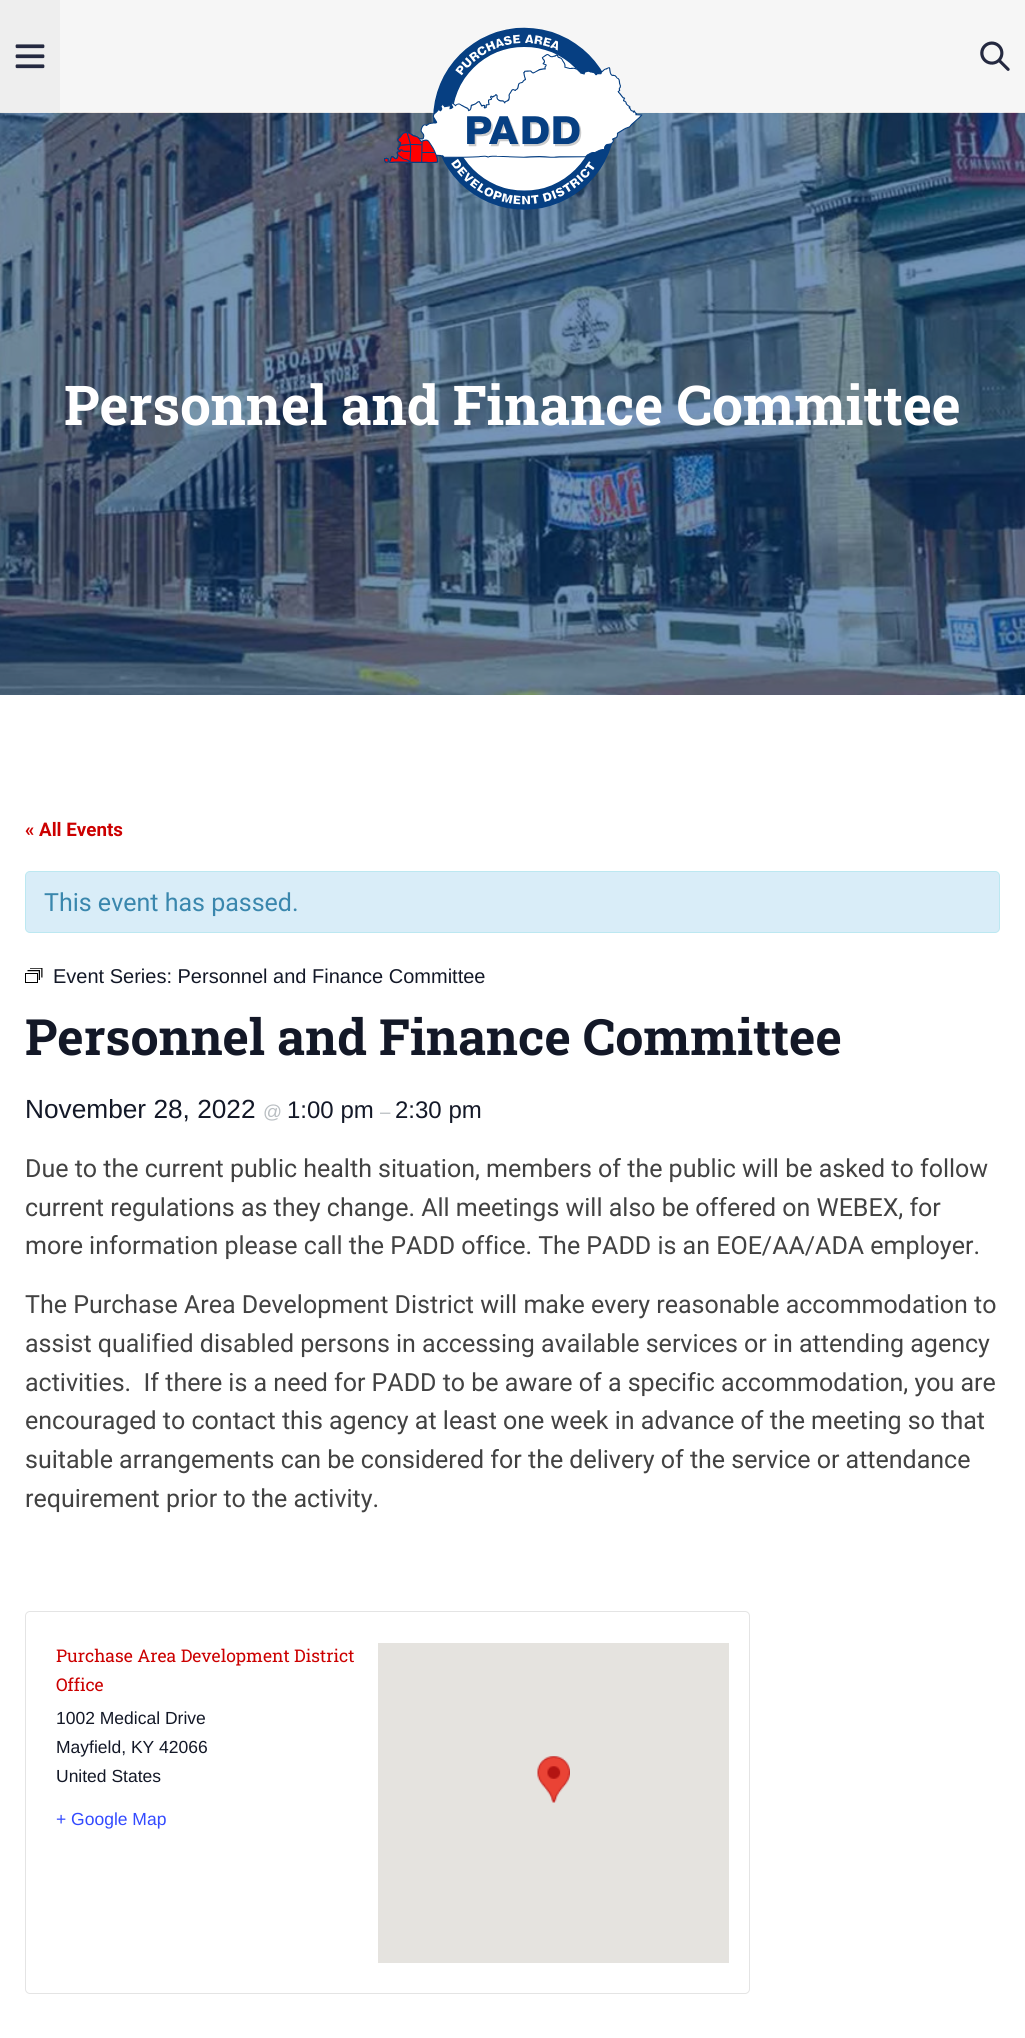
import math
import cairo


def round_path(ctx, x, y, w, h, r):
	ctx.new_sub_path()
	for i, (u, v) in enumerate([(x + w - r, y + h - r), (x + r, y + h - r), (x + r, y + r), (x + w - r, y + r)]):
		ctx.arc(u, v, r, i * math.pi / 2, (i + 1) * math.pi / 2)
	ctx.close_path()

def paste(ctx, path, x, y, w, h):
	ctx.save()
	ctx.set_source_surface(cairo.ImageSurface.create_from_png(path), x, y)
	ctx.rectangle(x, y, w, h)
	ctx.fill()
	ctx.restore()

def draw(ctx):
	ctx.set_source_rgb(1, 1, 1)
	ctx.paint()
	ctx.set_source_rgb(0.961, 0.961, 0.961)
	ctx.rectangle(60, 0, 965, 113)
	ctx.fill()
	ctx.set_source_rgb(0.933, 0.933, 0.933)
	ctx.rectangle(0, 0, 60, 113)
	ctx.fill()
	paste(ctx, 'media/1.png', 15, 44, 30, 25)
	ctx.set_source_rgb(0.02, 0.243, 0.51)
	ctx.rectangle(0, 113, 1025, 582)
	ctx.fill()
	paste(ctx, 'media/4.png', 0, 112, 1025, 583)
	paste(ctx, 'media/2.png', 384, 27, 259, 183)
	paste(ctx, 'media/3.png', 980, 41, 30, 30)
	ctx.select_font_face('Roboto Slab', cairo.FONT_SLANT_NORMAL, cairo.FONT_WEIGHT_BOLD)
	ctx.set_font_size(54.9)
	ctx.set_source_rgb(1, 1, 1)
	ctx.move_to(64, 425)
	ctx.show_text('Personnel and Finance Committee')
	ctx.select_font_face('Roboto', cairo.FONT_SLANT_NORMAL, cairo.FONT_WEIGHT_BOLD)
	ctx.set_font_size(18.75)
	ctx.set_source_rgb(0.8, 0, 0)
	ctx.move_to(25, 836)
	ctx.show_text('« All Events')
	ctx.set_source_rgb(0.851, 0.929, 0.969)
	round_path(ctx, 25.5, 871.5, 974, 61, 4.5)
	ctx.fill_preserve()
	ctx.set_source_rgb(0.737, 0.91, 0.945)
	ctx.set_line_width(1)
	ctx.stroke()
	ctx.select_font_face('Roboto')
	ctx.set_font_size(25)
	ctx.set_source_rgb(0.227, 0.529, 0.678)
	ctx.move_to(44, 911)
	ctx.show_text('This event has passed.')
	paste(ctx, 'media/5.png', 25, 968, 18, 15)
	ctx.select_font_face('Liberation Sans')
	ctx.set_font_size(20)
	ctx.set_source_rgb(0.078, 0.094, 0.153)
	ctx.move_to(53, 983)
	ctx.show_text('Event Series: Personnel and Finance Committee')
	ctx.select_font_face('Roboto Slab', cairo.FONT_SLANT_NORMAL, cairo.FONT_WEIGHT_BOLD)
	ctx.set_font_size(50)
	ctx.move_to(25, 1055)
	ctx.show_text('Personnel and Finance Committee')
	ctx.select_font_face('Liberation Sans')
	ctx.set_font_size(26.25)
	ctx.move_to(25, 1118)
	ctx.show_text('November 28, 2022')
	ctx.set_font_size(18.75)
	ctx.set_source_rgb(0.725, 0.745, 0.761)
	ctx.move_to(263, 1118)
	ctx.show_text('@')
	ctx.set_font_size(24)
	ctx.set_source_rgb(0.078, 0.094, 0.153)
	ctx.move_to(287, 1118)
	ctx.show_text('1:00 pm')
	ctx.set_font_size(18.75)
	ctx.set_source_rgb(0.725, 0.745, 0.761)
	ctx.move_to(380, 1118)
	ctx.show_text('–')
	ctx.set_font_size(24)
	ctx.set_source_rgb(0.078, 0.094, 0.153)
	ctx.move_to(395, 1118)
	ctx.show_text('2:30 pm')
	ctx.select_font_face('Roboto')
	ctx.set_font_size(25)
	ctx.set_source_rgb(0.259, 0.259, 0.259)
	for x, y, s in [
		(25, 1177, 'Due to the current public health situation, members of the public will be asked to follow'),
		(25, 1216, 'current regulations as they change. All meetings will also be offered on WEBEX, for'),
		(25, 1254, 'more information please call the PADD office. The PADD is an EOE/AA/ADA employer.'),
		(25, 1313, 'The Purchase Area Development District will make every reasonable accommodation to'),
		(25, 1352, 'assist qualified disabled persons in accessing available services or in attending agency'),
		(25, 1391, 'activities.  If there is a need for PADD to be aware of a specific accommodation, you are'),
		(25, 1429, 'encouraged to contact this agency at least one week in advance of the meeting so that'),
		(25, 1468, 'suitable arrangements can be considered for the delivery of the service or attendance'),
		(25, 1507, 'requirement prior to the activity.'),
	]:
		ctx.move_to(x, y)
		ctx.show_text(s)
	round_path(ctx, 25.5, 1611.5, 724, 382, 4.5)
	ctx.set_source_rgb(0.894, 0.894, 0.894)
	ctx.stroke()
	ctx.select_font_face('Roboto Slab')
	ctx.set_font_size(17.5)
	ctx.set_source_rgb(0.8, 0, 0)
	ctx.move_to(56, 1662)
	ctx.show_text('Purchase Area Development District')
	ctx.move_to(56, 1691)
	ctx.show_text('Office')
	ctx.select_font_face('Liberation Sans')
	ctx.set_source_rgb(0.078, 0.094, 0.153)
	for x, y, s in [
		(56, 1724, '1002 Medical Drive'),
		(56, 1753, 'Mayfield, KY 42066'),
		(56, 1782, 'United States'),
	]:
		ctx.move_to(x, y)
		ctx.show_text(s)
	ctx.set_source_rgb(0.2, 0.29, 1)
	ctx.move_to(56, 1825)
	ctx.show_text('+ Google Map')
	ctx.set_source_rgb(0.898, 0.89, 0.875)
	ctx.rectangle(378, 1643, 351, 320)
	ctx.fill()
	paste(ctx, 'media/6.png', 537, 1756, 33, 47)


surface = cairo.ImageSurface(cairo.FORMAT_RGB24, 1025, 2038)
ctx = cairo.Context(surface)
options = cairo.FontOptions()
options.set_hint_metrics(cairo.HINT_METRICS_OFF)
options.set_hint_style(cairo.HINT_STYLE_NONE)
ctx.set_font_options(options)
ctx.set_miter_limit(4)
draw(ctx)
surface.write_to_png('image.png')
